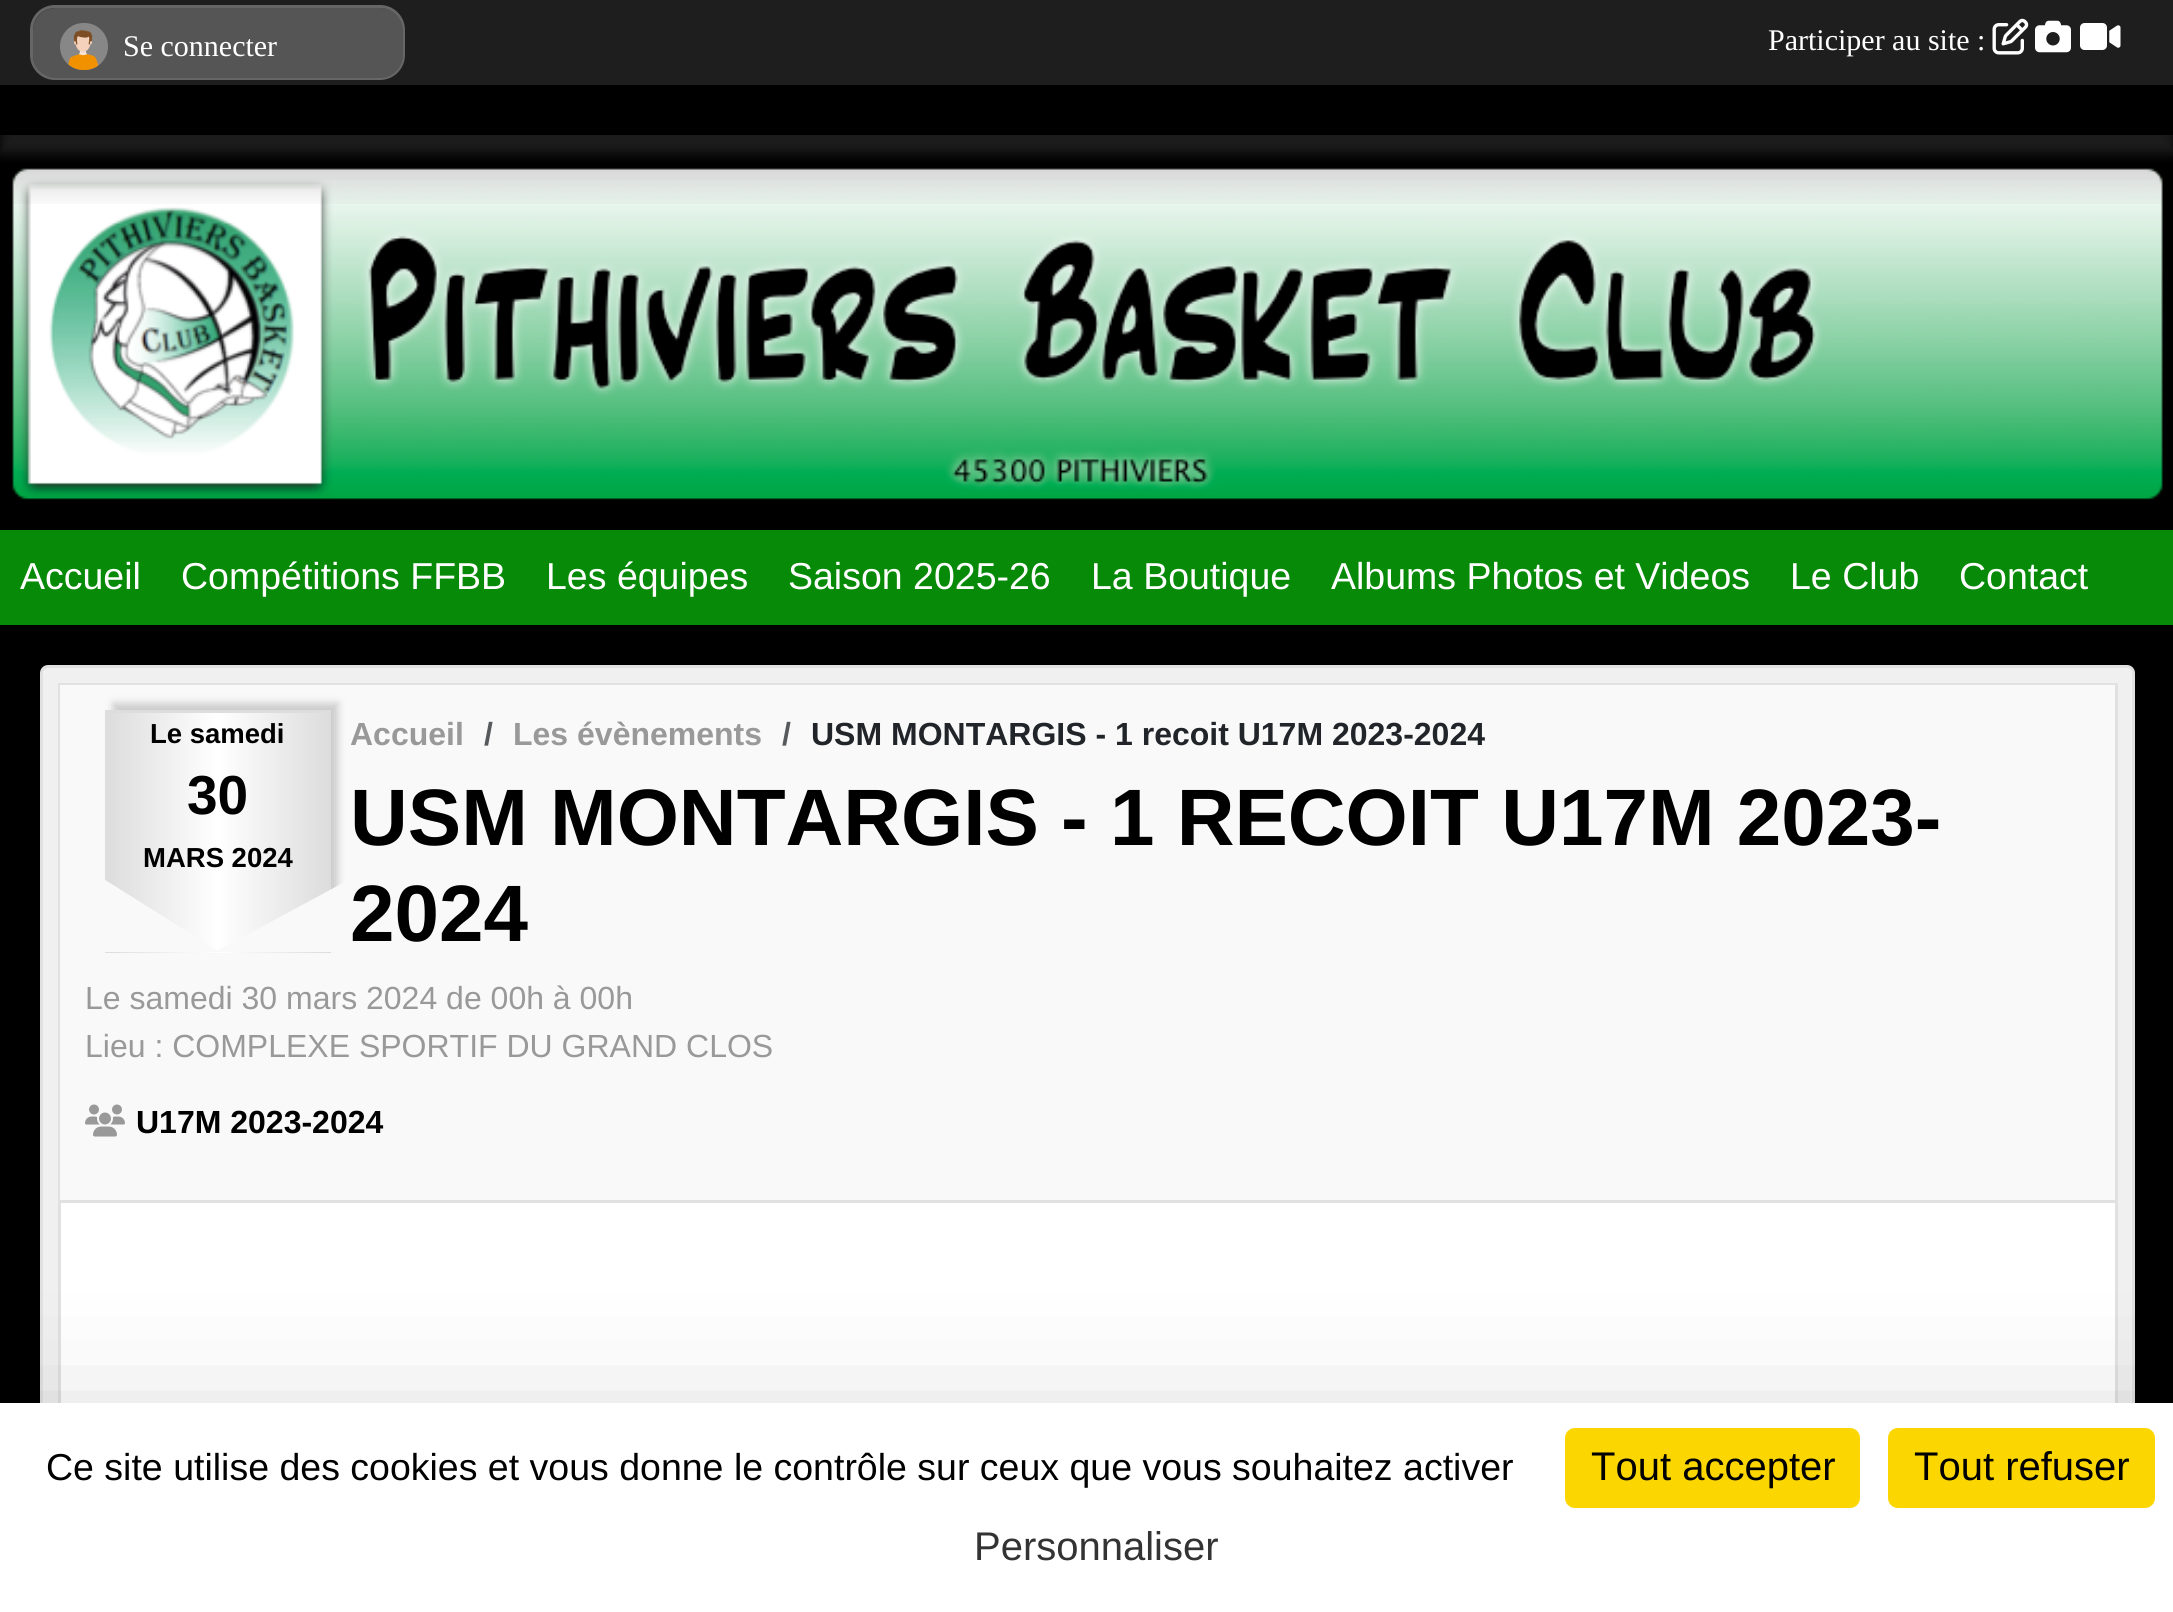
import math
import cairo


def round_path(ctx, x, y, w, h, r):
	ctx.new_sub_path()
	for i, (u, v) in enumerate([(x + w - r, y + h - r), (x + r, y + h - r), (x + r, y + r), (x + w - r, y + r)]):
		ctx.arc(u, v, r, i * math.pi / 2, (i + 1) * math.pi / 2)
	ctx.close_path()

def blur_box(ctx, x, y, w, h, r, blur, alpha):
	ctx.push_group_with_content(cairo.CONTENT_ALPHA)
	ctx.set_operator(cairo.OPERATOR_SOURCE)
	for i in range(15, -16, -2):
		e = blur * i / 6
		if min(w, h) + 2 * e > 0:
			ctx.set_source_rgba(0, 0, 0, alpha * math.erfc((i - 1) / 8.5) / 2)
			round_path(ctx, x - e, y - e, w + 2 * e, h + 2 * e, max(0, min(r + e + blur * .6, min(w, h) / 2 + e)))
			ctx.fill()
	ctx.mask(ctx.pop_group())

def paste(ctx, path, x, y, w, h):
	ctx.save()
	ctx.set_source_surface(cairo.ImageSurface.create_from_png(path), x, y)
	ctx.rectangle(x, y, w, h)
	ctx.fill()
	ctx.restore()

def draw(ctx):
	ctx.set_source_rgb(0, 0, 0)
	ctx.paint()
	ctx.save()
	ctx.rectangle(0, 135, 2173, 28)
	ctx.clip()
	ctx.set_source_rgb(0.314, 0.314, 0.314)
	blur_box(ctx, 0, 103, 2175, 50, 0, 6, 0.5)
	ctx.restore()
	ctx.set_source_rgb(0.118, 0.118, 0.118)
	ctx.rectangle(0, 0, 2173, 85)
	ctx.fill()
	ctx.set_source_rgb(0.2, 0.2, 0.2)
	round_path(ctx, 31.5, 6.5, 372, 72, 23.5)
	ctx.fill_preserve()
	ctx.set_source_rgb(0.4, 0.4, 0.4)
	ctx.set_line_width(3)
	ctx.stroke()
	ctx.set_source_rgb(0.333, 0.333, 0.333)
	round_path(ctx, 33, 8, 370, 70, 23)
	ctx.fill()
	paste(ctx, 'media/1.png', 60, 23, 48, 47)
	ctx.select_font_face('Liberation Serif')
	ctx.set_font_size(30)
	ctx.set_source_rgb(1, 1, 1)
	ctx.move_to(123, 56)
	ctx.show_text('Se connecter')
	ctx.move_to(1768, 50)
	ctx.show_text('Participer au site :')
	paste(ctx, 'media/2.png', 1992, 18, 37, 37)
	paste(ctx, 'media/3.png', 2035, 20, 36, 33)
	paste(ctx, 'media/4.png', 2080, 23, 41, 27)
	paste(ctx, 'media/6.png', 12, 168, 2151, 332)
	paste(ctx, 'media/5.png', 0, 135, 2173, 69)
	ctx.set_source_rgb(0.031, 0.541, 0.031)
	ctx.rectangle(0, 530, 2173, 95)
	ctx.fill()
	ctx.select_font_face('Liberation Sans')
	ctx.set_font_size(37.5)
	ctx.set_source_rgb(1, 1, 1)
	for x, y, s in [
		(20, 589, 'Accueil'),
		(181, 589, 'Compétitions FFBB'),
		(546, 589, 'Les équipes'),
		(788, 589, 'Saison 2025-26'),
		(1091, 589, 'La Boutique'),
		(1331, 589, 'Albums Photos et Videos'),
		(1790, 589, 'Le Club'),
		(1959, 589, 'Contact'),
	]:
		ctx.move_to(x, y)
		ctx.show_text(s)
	ctx.set_source_rgb(0.941, 0.941, 0.941)
	round_path(ctx, 41.5, 666.5, 2092, 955, 6.5)
	ctx.fill_preserve()
	ctx.set_source_rgb(0.882, 0.882, 0.882)
	ctx.stroke()
	ctx.set_source_rgb(1, 1, 1)
	ctx.rectangle(61, 1203, 2054, 200)
	ctx.fill()
	ctx.rectangle(59.5, 684.5, 2057, 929)
	ctx.set_source_rgb(0.882, 0.882, 0.882)
	ctx.stroke()
	ctx.set_source_rgb(0.973, 0.973, 0.973)
	ctx.rectangle(60, 685, 2055, 515)
	ctx.fill()
	ctx.set_source_rgb(0.882, 0.882, 0.882)
	ctx.rectangle(60, 1200, 2055, 3)
	ctx.fill()
	ctx.set_source_rgb(0.8, 0.8, 0.8)
	blur_box(ctx, 113, 703, 225, 242, 0, 4, 1)
	gradient = cairo.LinearGradient(-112, 833, 108, 833)
	gradient.add_color_stop_rgba(0, 0.867, 0.867, 0.867, 1)
	gradient.add_color_stop_rgba(0.5, 1, 1, 1, 1)
	gradient.add_color_stop_rgba(1, 0.867, 0.867, 0.867, 1)
	ctx.set_source(gradient)
	ctx.rectangle(105, 710, 3, 243)
	ctx.fill()
	gradient = cairo.LinearGradient(108, 833, 328, 833)
	gradient.add_color_stop_rgba(0, 0.867, 0.867, 0.867, 1)
	gradient.add_color_stop_rgba(0.5, 1, 1, 1, 1)
	gradient.add_color_stop_rgba(1, 0.867, 0.867, 0.867, 1)
	ctx.set_source(gradient)
	ctx.rectangle(108, 713, 220, 240)
	ctx.fill()
	ctx.set_source_rgb(0.867, 0.867, 0.867)
	ctx.rectangle(105, 710, 225, 3)
	ctx.fill()
	ctx.rectangle(328, 710, 3, 243)
	ctx.fill()
	ctx.select_font_face('Liberation Sans', cairo.FONT_SLANT_NORMAL, cairo.FONT_WEIGHT_BOLD)
	ctx.set_font_size(27.5)
	ctx.set_source_rgb(0, 0, 0)
	ctx.move_to(150, 743)
	ctx.show_text('Le samedi')
	ctx.set_font_size(55)
	ctx.move_to(187, 814)
	ctx.show_text('30')
	ctx.set_font_size(27.5)
	ctx.move_to(143, 867)
	ctx.show_text('MARS 2024')
	ctx.set_source_rgb(0.973, 0.973, 0.973)
	ctx.new_path()
	ctx.move_to(102, 952)
	ctx.line_to(102, 878)
	ctx.line_to(220, 952)
	ctx.close_path()
	ctx.fill()
	ctx.new_path()
	ctx.move_to(352, 878)
	ctx.line_to(352, 952)
	ctx.line_to(215, 952)
	ctx.close_path()
	ctx.fill()
	ctx.set_font_size(32)
	ctx.set_source_rgb(0.6, 0.6, 0.6)
	ctx.move_to(350, 745)
	ctx.show_text('Accueil')
	ctx.set_source_rgb(0.341, 0.353, 0.365)
	ctx.move_to(484, 745)
	ctx.show_text('/')
	ctx.set_source_rgb(0.6, 0.6, 0.6)
	ctx.move_to(513, 745)
	ctx.show_text('Les évènements')
	ctx.set_source_rgb(0.341, 0.353, 0.365)
	ctx.move_to(782, 745)
	ctx.show_text('/')
	ctx.set_source_rgb(0.129, 0.145, 0.161)
	ctx.move_to(811, 745)
	ctx.show_text('USM MONTARGIS - 1 recoit U17M 2023-2024')
	ctx.set_font_size(80)
	ctx.set_source_rgb(0, 0, 0)
	ctx.move_to(350, 845)
	ctx.show_text('USM MONTARGIS - 1 RECOIT U17M 2023-')
	ctx.move_to(350, 941)
	ctx.show_text('2024')
	ctx.select_font_face('Liberation Sans')
	ctx.set_font_size(32)
	ctx.set_source_rgb(0.6, 0.6, 0.6)
	ctx.move_to(85, 1009)
	ctx.show_text('Le samedi 30 mars 2024 de 00h à 00h')
	ctx.move_to(85, 1057)
	ctx.show_text('Lieu : COMPLEXE SPORTIF DU GRAND CLOS')
	paste(ctx, 'media/7.png', 85, 1104, 40, 33)
	ctx.select_font_face('Liberation Sans', cairo.FONT_SLANT_NORMAL, cairo.FONT_WEIGHT_BOLD)
	ctx.set_source_rgb(0, 0, 0)
	ctx.move_to(136, 1133)
	ctx.show_text('U17M 2023-2024')
	ctx.set_source_rgb(0, 0, 0)
	blur_box(ctx, 0, 1453, 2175, 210, 0, 75, 0.25)
	ctx.set_source_rgb(1, 1, 1)
	ctx.rectangle(0, 1403, 2173, 209)
	ctx.fill()
	ctx.select_font_face('Liberation Sans')
	ctx.set_font_size(37.5)
	ctx.set_source_rgb(0, 0, 0)
	ctx.move_to(46, 1480)
	ctx.show_text('Ce site utilise des cookies et vous donne le contrôle sur ceux que vous souhaitez activer')
	ctx.set_source_rgb(0.984, 0.839, 0)
	round_path(ctx, 1565, 1428, 295, 80, 10)
	ctx.fill()
	ctx.set_font_size(40)
	ctx.set_source_rgb(0, 0, 0)
	ctx.move_to(1591, 1480)
	ctx.show_text('Tout accepter')
	ctx.set_source_rgb(0.984, 0.839, 0)
	round_path(ctx, 1888, 1428, 267, 80, 10)
	ctx.fill()
	ctx.set_source_rgb(0, 0, 0)
	ctx.move_to(1914, 1480)
	ctx.show_text('Tout refuser')
	ctx.set_source_rgb(0.2, 0.2, 0.2)
	ctx.move_to(974, 1560)
	ctx.show_text('Personnaliser')


surface = cairo.ImageSurface(cairo.FORMAT_RGB24, 2173, 1612)
ctx = cairo.Context(surface)
options = cairo.FontOptions()
options.set_hint_metrics(cairo.HINT_METRICS_OFF)
options.set_hint_style(cairo.HINT_STYLE_NONE)
ctx.set_font_options(options)
ctx.set_miter_limit(4)
draw(ctx)
surface.write_to_png('image.png')
